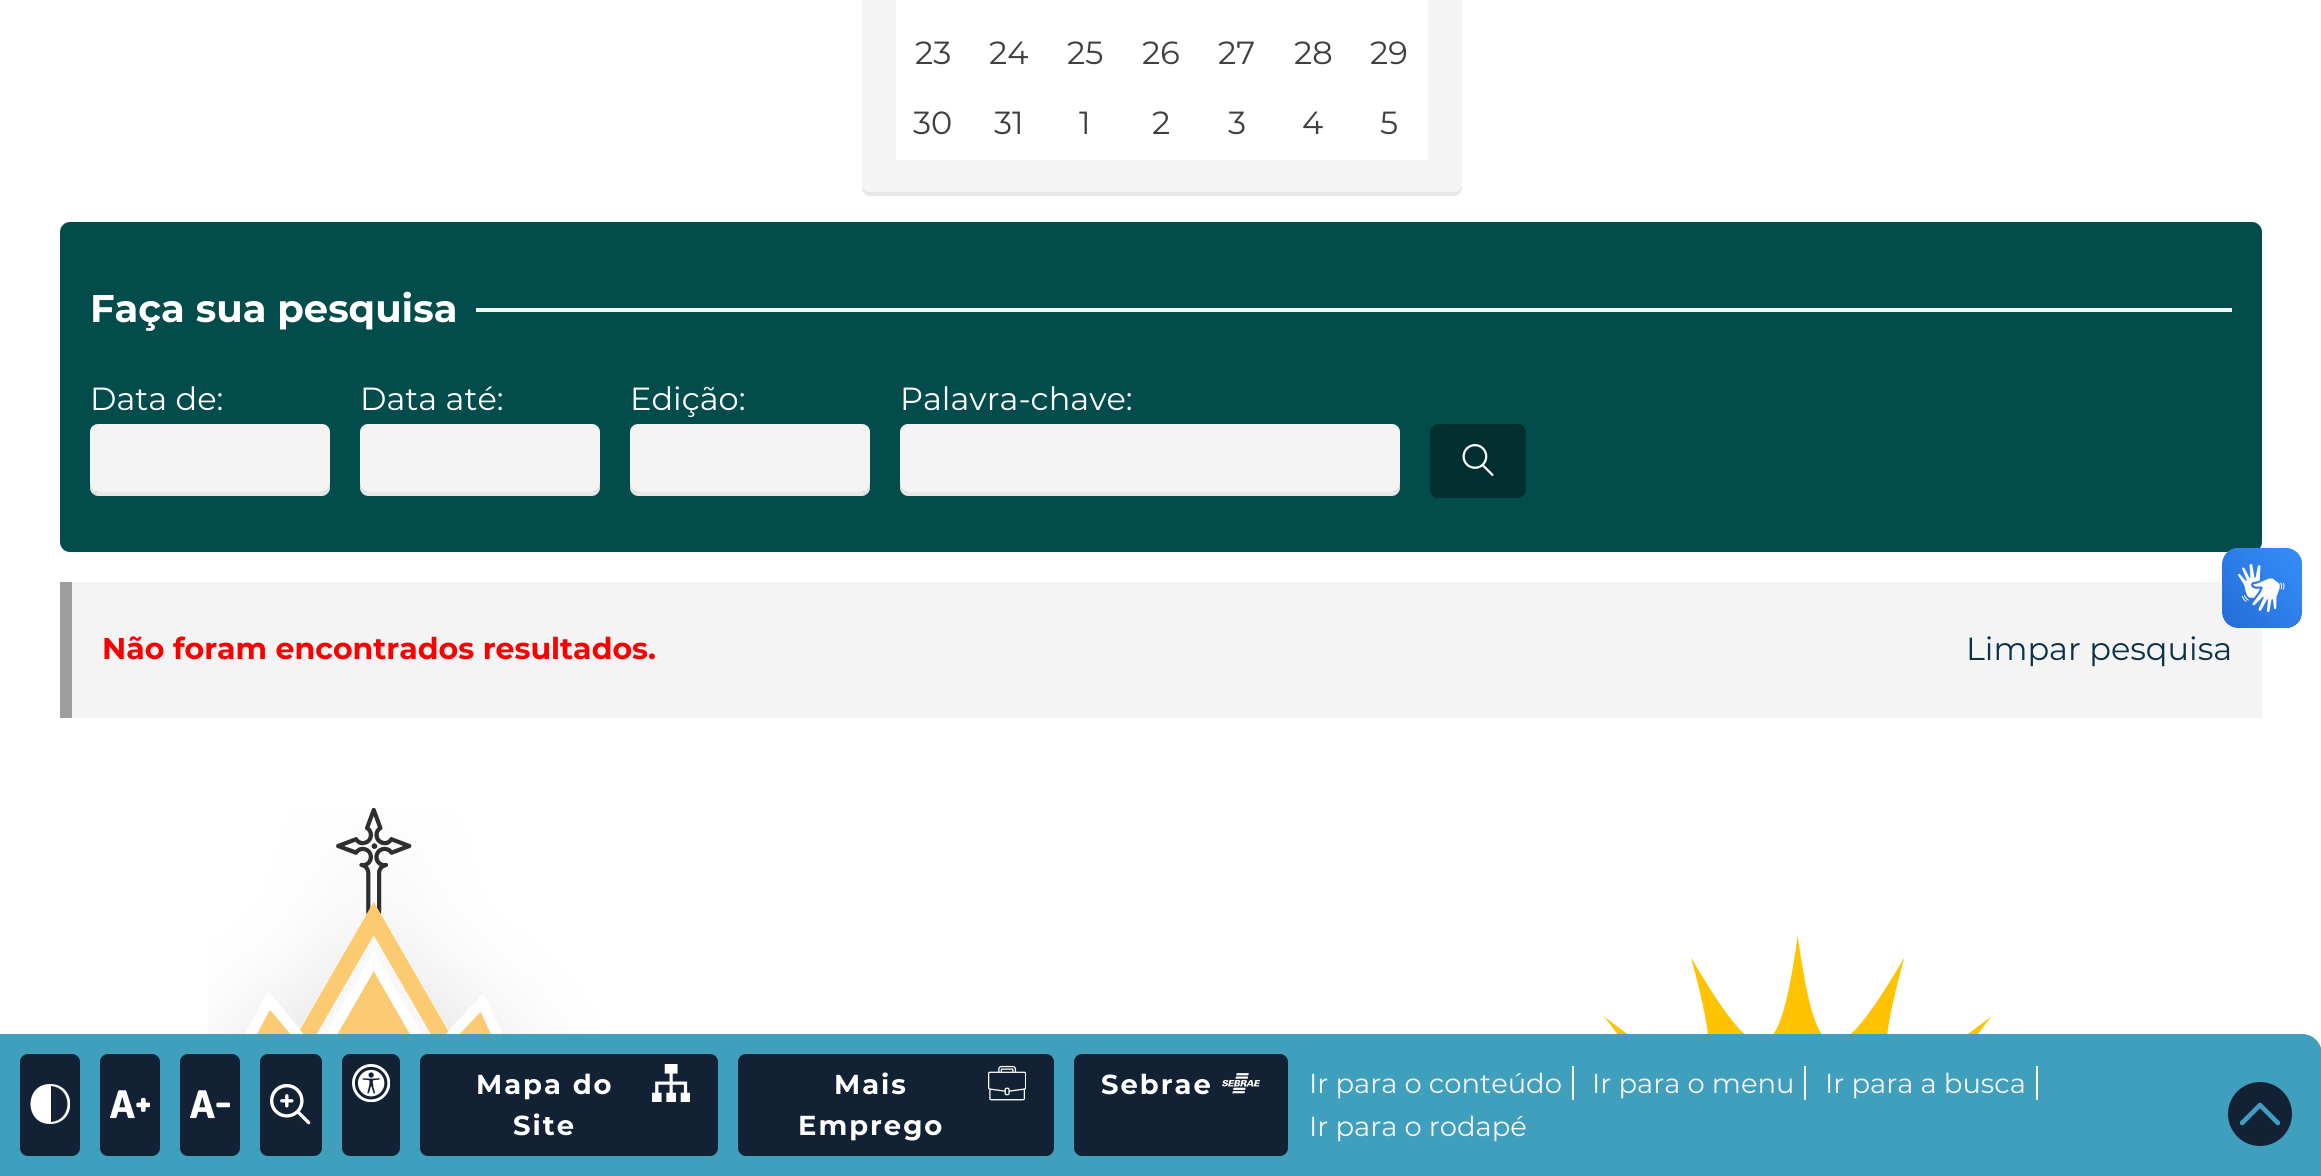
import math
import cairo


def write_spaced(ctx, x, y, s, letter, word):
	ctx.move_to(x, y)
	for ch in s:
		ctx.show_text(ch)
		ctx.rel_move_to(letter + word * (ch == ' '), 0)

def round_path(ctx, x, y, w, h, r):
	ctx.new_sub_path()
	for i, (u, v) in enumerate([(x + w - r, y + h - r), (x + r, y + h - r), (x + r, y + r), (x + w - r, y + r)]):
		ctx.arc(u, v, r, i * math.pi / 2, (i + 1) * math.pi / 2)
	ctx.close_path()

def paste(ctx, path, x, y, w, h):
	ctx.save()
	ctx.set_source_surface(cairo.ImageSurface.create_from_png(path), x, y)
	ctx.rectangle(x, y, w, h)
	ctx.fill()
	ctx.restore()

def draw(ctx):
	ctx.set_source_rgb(1, 1, 1)
	ctx.paint()
	ctx.set_source_rgb(0.906, 0.906, 0.906)
	ctx.new_path()
	ctx.move_to(862, 184)
	ctx.line_to(862, 188)
	ctx.curve_to(862, 192, 866, 196, 870, 196)
	ctx.line_to(1454, 196)
	ctx.curve_to(1458, 196, 1462, 192, 1462, 188)
	ctx.line_to(1462, 184)
	ctx.curve_to(1462, 188, 1458, 192, 1454, 192)
	ctx.line_to(870, 192)
	ctx.curve_to(866, 192, 862, 188, 862, 184)
	ctx.close_path()
	ctx.fill()
	ctx.set_source_rgb(0.957, 0.957, 0.957)
	round_path(ctx, 862, -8, 600, 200, 8)
	ctx.fill()
	ctx.set_source_rgb(1, 1, 1)
	ctx.rectangle(896, 0, 532, 20)
	ctx.fill()
	ctx.rectangle(896, 20, 532, 70)
	ctx.fill()
	ctx.select_font_face('Montserrat')
	ctx.set_font_size(32)
	ctx.set_source_rgb(0.247, 0.247, 0.247)
	for x, y, s in [
		(915, 64, '23'),
		(989, 64, '24'),
		(1067, 64, '25'),
		(1142, 64, '26'),
		(1218, 64, '27'),
		(1294, 64, '28'),
		(1370, 64, '29'),
	]:
		ctx.move_to(x, y)
		ctx.show_text(s)
	ctx.set_source_rgb(1, 1, 1)
	ctx.rectangle(896, 90, 532, 70)
	ctx.fill()
	ctx.set_source_rgb(0.247, 0.247, 0.247)
	for x, y, s in [
		(913, 134, '30'),
		(994, 134, '31'),
		(1079, 134, '1'),
		(1152, 134, '2'),
		(1228, 134, '3'),
		(1302, 134, '4'),
		(1380, 134, '5'),
	]:
		ctx.move_to(x, y)
		ctx.show_text(s)
	ctx.set_source_rgb(0.008, 0.298, 0.298)
	round_path(ctx, 60, 222, 2202, 330, 10)
	ctx.fill()
	ctx.select_font_face('Montserrat', cairo.FONT_SLANT_NORMAL, cairo.FONT_WEIGHT_BOLD)
	ctx.set_font_size(38.5)
	ctx.set_source_rgb(1, 1, 1)
	ctx.move_to(90, 322)
	ctx.show_text('Faça sua pesquisa')
	ctx.set_source_rgb(0.957, 0.957, 0.957)
	ctx.rectangle(476, 308, 1756, 4)
	ctx.fill()
	ctx.select_font_face('Montserrat')
	ctx.set_font_size(32)
	ctx.set_source_rgb(1, 1, 1)
	ctx.move_to(90, 410)
	ctx.show_text('Data de:')
	ctx.set_source_rgb(0.906, 0.906, 0.906)
	ctx.new_path()
	ctx.move_to(90, 484)
	ctx.line_to(90, 488)
	ctx.curve_to(90, 492, 94, 496, 98, 496)
	ctx.line_to(322, 496)
	ctx.curve_to(326, 496, 330, 492, 330, 488)
	ctx.line_to(330, 484)
	ctx.curve_to(330, 488, 326, 492, 322, 492)
	ctx.line_to(98, 492)
	ctx.curve_to(94, 492, 90, 488, 90, 484)
	ctx.close_path()
	ctx.fill()
	ctx.set_source_rgb(0.957, 0.957, 0.957)
	round_path(ctx, 91, 425, 238, 66, 7)
	ctx.fill_preserve()
	ctx.set_source_rgb(0.953, 0.953, 0.953)
	ctx.stroke()
	ctx.set_source_rgb(1, 1, 1)
	ctx.move_to(360, 410)
	ctx.show_text('Data até:')
	ctx.set_source_rgb(0.906, 0.906, 0.906)
	ctx.new_path()
	ctx.move_to(360, 484)
	ctx.line_to(360, 488)
	ctx.curve_to(360, 492, 364, 496, 368, 496)
	ctx.line_to(592, 496)
	ctx.curve_to(596, 496, 600, 492, 600, 488)
	ctx.line_to(600, 484)
	ctx.curve_to(600, 488, 596, 492, 592, 492)
	ctx.line_to(368, 492)
	ctx.curve_to(364, 492, 360, 488, 360, 484)
	ctx.close_path()
	ctx.fill()
	ctx.set_source_rgb(0.957, 0.957, 0.957)
	round_path(ctx, 361, 425, 238, 66, 7)
	ctx.fill_preserve()
	ctx.set_source_rgb(0.953, 0.953, 0.953)
	ctx.stroke()
	ctx.set_source_rgb(1, 1, 1)
	ctx.move_to(630, 410)
	ctx.show_text('Edição:')
	ctx.set_source_rgb(0.906, 0.906, 0.906)
	ctx.new_path()
	ctx.move_to(630, 484)
	ctx.line_to(630, 488)
	ctx.curve_to(630, 492, 634, 496, 638, 496)
	ctx.line_to(862, 496)
	ctx.curve_to(866, 496, 870, 492, 870, 488)
	ctx.line_to(870, 484)
	ctx.curve_to(870, 488, 866, 492, 862, 492)
	ctx.line_to(638, 492)
	ctx.curve_to(634, 492, 630, 488, 630, 484)
	ctx.close_path()
	ctx.fill()
	ctx.set_source_rgb(0.957, 0.957, 0.957)
	round_path(ctx, 631, 425, 238, 66, 7)
	ctx.fill_preserve()
	ctx.set_source_rgb(0.953, 0.953, 0.953)
	ctx.stroke()
	ctx.set_source_rgb(1, 1, 1)
	ctx.move_to(900, 410)
	ctx.show_text('Palavra-chave:')
	ctx.set_source_rgb(0.906, 0.906, 0.906)
	ctx.new_path()
	ctx.move_to(900, 484)
	ctx.line_to(900, 488)
	ctx.curve_to(900, 492, 904, 496, 908, 496)
	ctx.line_to(1392, 496)
	ctx.curve_to(1396, 496, 1400, 492, 1400, 488)
	ctx.line_to(1400, 484)
	ctx.curve_to(1400, 488, 1396, 492, 1392, 492)
	ctx.line_to(908, 492)
	ctx.curve_to(904, 492, 900, 488, 900, 484)
	ctx.close_path()
	ctx.fill()
	ctx.set_source_rgb(0.957, 0.957, 0.957)
	round_path(ctx, 901, 425, 498, 66, 7)
	ctx.fill_preserve()
	ctx.set_source_rgb(0.953, 0.953, 0.953)
	ctx.stroke()
	ctx.set_source_rgb(0.004, 0.18, 0.18)
	round_path(ctx, 1430, 424, 96, 74, 8)
	ctx.fill()
	paste(ctx, 'media/1.png', 1462, 444, 32, 32)
	ctx.set_source_rgb(0.957, 0.957, 0.957)
	ctx.rectangle(72, 582, 2190, 136)
	ctx.fill()
	ctx.set_source_rgb(0.616, 0.616, 0.616)
	ctx.rectangle(60, 582, 12, 136)
	ctx.fill()
	ctx.select_font_face('Montserrat', cairo.FONT_SLANT_NORMAL, cairo.FONT_WEIGHT_BOLD)
	ctx.set_font_size(30)
	ctx.set_source_rgb(0.984, 0, 0)
	ctx.move_to(102, 659)
	ctx.show_text('Não foram encontrados resultados.')
	ctx.select_font_face('Montserrat')
	ctx.set_font_size(32)
	ctx.set_source_rgb(0.047, 0.196, 0.278)
	ctx.move_to(1966, 660)
	ctx.show_text('Limpar pesquisa')
	paste(ctx, 'media/2.png', 2222, 548, 80, 80)
	paste(ctx, 'media/3.png', 2222, 548, 80, 80)
	paste(ctx, 'media/4.png', 208, 808, 1784, 226)
	ctx.set_source_rgb(0.251, 0.624, 0.741)
	ctx.new_path()
	ctx.move_to(0, 1034)
	ctx.line_to(2302, 1034)
	ctx.curve_to(2313, 1034, 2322, 1043, 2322, 1054)
	ctx.line_to(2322, 1176)
	ctx.line_to(0, 1176)
	ctx.close_path()
	ctx.fill()
	paste(ctx, 'media/5.png', 2228, 1082, 64, 64)
	ctx.set_source_rgb(0.071, 0.129, 0.204)
	round_path(ctx, 20, 1054, 60, 102, 8)
	ctx.fill()
	ctx.save()
	ctx.rectangle(30, 1084, 40, 42)
	ctx.clip()
	ctx.set_source_rgb(1, 1, 1)
	ctx.new_path()
	ctx.move_to(50, 1084)
	ctx.curve_to(24, 1084, 24, 1124, 50, 1124)
	ctx.curve_to(77, 1124, 77, 1084, 50, 1084)
	ctx.close_path()
	ctx.move_to(51, 1122)
	ctx.line_to(51, 1086)
	ctx.curve_to(73, 1088, 73, 1120, 51, 1122)
	ctx.close_path()
	ctx.fill()
	ctx.restore()
	round_path(ctx, 100, 1054, 60, 102, 8)
	ctx.fill()
	paste(ctx, 'media/6.png', 110, 1090, 40, 29)
	round_path(ctx, 180, 1054, 60, 102, 8)
	ctx.fill()
	paste(ctx, 'media/7.png', 190, 1090, 40, 29)
	round_path(ctx, 260, 1054, 62, 102, 8)
	ctx.fill()
	paste(ctx, 'media/8.png', 270, 1084, 41, 41)
	round_path(ctx, 342, 1054, 58, 102, 8)
	ctx.fill()
	paste(ctx, 'media/9.png', 352, 1064, 38, 38)
	round_path(ctx, 420, 1054, 298, 102, 8)
	ctx.fill()
	ctx.select_font_face('Montserrat', cairo.FONT_SLANT_NORMAL, cairo.FONT_WEIGHT_BOLD)
	ctx.set_font_size(27.4)
	ctx.set_source_rgb(1, 1, 1)
	write_spaced(ctx, 476, 1094, 'Mapa do', 2, 0)
	write_spaced(ctx, 513, 1135, 'Site', 2, 0)
	paste(ctx, 'media/10.png', 652, 1064, 38, 38)
	ctx.set_source_rgb(0.071, 0.129, 0.204)
	round_path(ctx, 738, 1054, 316, 102, 8)
	ctx.fill()
	ctx.set_source_rgb(1, 1, 1)
	write_spaced(ctx, 834, 1094, 'Mais', 2, 0)
	write_spaced(ctx, 798, 1135, 'Emprego', 2, 0)
	paste(ctx, 'media/11.png', 988, 1065, 38, 36)
	ctx.set_source_rgb(0.071, 0.129, 0.204)
	round_path(ctx, 1074, 1054, 214, 102, 8)
	ctx.fill()
	ctx.set_source_rgb(1, 1, 1)
	write_spaced(ctx, 1101, 1094, 'Sebrae', 2, 0)
	paste(ctx, 'media/12.png', 1222, 1073, 38, 21)
	ctx.set_source_rgb(0.957, 0.957, 0.957)
	ctx.rectangle(1572, 1066, 2, 34)
	ctx.fill()
	ctx.select_font_face('Montserrat')
	ctx.move_to(1309, 1093)
	ctx.show_text('Ir para o conteúdo')
	ctx.rectangle(1804, 1066, 2, 34)
	ctx.fill()
	ctx.move_to(1592, 1093)
	ctx.show_text('Ir para o menu')
	ctx.rectangle(2036, 1066, 2, 34)
	ctx.fill()
	ctx.move_to(1825, 1093)
	ctx.show_text('Ir para a busca')
	ctx.move_to(1309, 1136)
	ctx.show_text('Ir para o rodapé')


surface = cairo.ImageSurface(cairo.FORMAT_RGB24, 2321, 1176)
ctx = cairo.Context(surface)
options = cairo.FontOptions()
options.set_hint_metrics(cairo.HINT_METRICS_OFF)
options.set_hint_style(cairo.HINT_STYLE_NONE)
ctx.set_font_options(options)
ctx.set_miter_limit(4)
draw(ctx)
surface.write_to_png('image.png')
